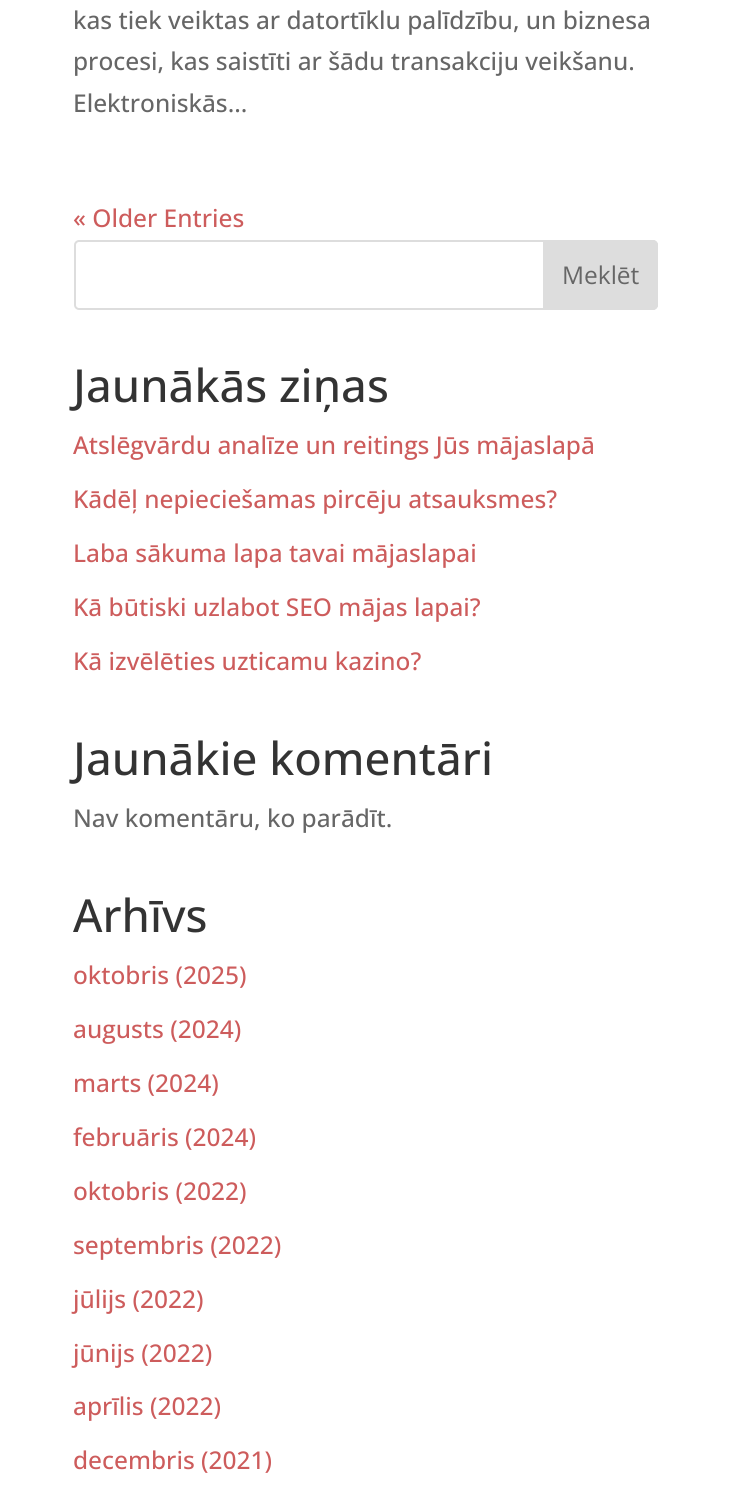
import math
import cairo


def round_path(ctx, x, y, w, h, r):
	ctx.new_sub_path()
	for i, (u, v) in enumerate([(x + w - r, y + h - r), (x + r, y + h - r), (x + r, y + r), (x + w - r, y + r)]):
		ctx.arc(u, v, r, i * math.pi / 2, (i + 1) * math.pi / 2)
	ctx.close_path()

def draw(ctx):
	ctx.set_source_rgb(1, 1, 1)
	ctx.paint()
	ctx.select_font_face('Open Sans Medium')
	ctx.set_font_size(24.5)
	ctx.set_source_rgb(0.4, 0.4, 0.4)
	for x, y, s in [
		(73, 29, 'kas tiek veiktas ar datortīklu palīdzību, un biznesa'),
		(73, 70, 'procesi, kas saistīti ar šādu transakciju veikšanu.'),
		(73, 112, 'Elektroniskās...'),
	]:
		ctx.move_to(x, y)
		ctx.show_text(s)
	ctx.set_source_rgb(0.804, 0.361, 0.361)
	ctx.move_to(73, 227)
	ctx.show_text('« Older Entries')
	round_path(ctx, 75, 241, 582, 68, 4)
	ctx.set_source_rgb(0.867, 0.867, 0.867)
	ctx.stroke()
	ctx.new_path()
	ctx.move_to(544, 241)
	ctx.line_to(653, 241)
	ctx.curve_to(655, 241, 657, 243, 657, 245)
	ctx.line_to(657, 305)
	ctx.curve_to(657, 307, 655, 309, 653, 309)
	ctx.line_to(544, 309)
	ctx.close_path()
	ctx.fill_preserve()
	ctx.stroke()
	ctx.select_font_face('Open Sans')
	ctx.set_source_rgb(0.4, 0.4, 0.4)
	ctx.move_to(562, 284)
	ctx.show_text('Meklēt')
	ctx.select_font_face('Open Sans Medium')
	ctx.set_font_size(45.5)
	ctx.set_source_rgb(0.2, 0.2, 0.2)
	ctx.move_to(73, 402)
	ctx.show_text('Jaunākās ziņas')
	ctx.set_font_size(24.5)
	ctx.set_source_rgb(0.804, 0.361, 0.361)
	for x, y, s in [
		(73, 454, 'Atslēgvārdu analīze un reitings Jūs mājaslapā'),
		(73, 508, 'Kādēļ nepieciešamas pircēju atsauksmes?'),
		(73, 562, 'Laba sākuma lapa tavai mājaslapai'),
		(73, 616, 'Kā būtiski uzlabot SEO mājas lapai?'),
		(73, 670, 'Kā izvēlēties uzticamu kazino?'),
	]:
		ctx.move_to(x, y)
		ctx.show_text(s)
	ctx.set_font_size(45.5)
	ctx.set_source_rgb(0.2, 0.2, 0.2)
	ctx.move_to(73, 775)
	ctx.show_text('Jaunākie komentāri')
	ctx.set_font_size(24.5)
	ctx.set_source_rgb(0.4, 0.4, 0.4)
	ctx.move_to(73, 827)
	ctx.show_text('Nav komentāru, ko parādīt.')
	ctx.set_font_size(45.5)
	ctx.set_source_rgb(0.2, 0.2, 0.2)
	ctx.move_to(73, 932)
	ctx.show_text('Arhīvs')
	ctx.set_font_size(24.5)
	ctx.set_source_rgb(0.804, 0.361, 0.361)
	for x, y, s in [
		(73, 984, 'oktobris (2025)'),
		(73, 1038, 'augusts (2024)'),
		(73, 1092, 'marts (2024)'),
		(73, 1146, 'februāris (2024)'),
		(73, 1200, 'oktobris (2022)'),
		(73, 1254, 'septembris (2022)'),
		(73, 1308, 'jūlijs (2022)'),
		(73, 1362, 'jūnijs (2022)'),
		(73, 1415, 'aprīlis (2022)'),
		(73, 1469, 'decembris (2021)'),
	]:
		ctx.move_to(x, y)
		ctx.show_text(s)


surface = cairo.ImageSurface(cairo.FORMAT_RGB24, 730, 1512)
ctx = cairo.Context(surface)
options = cairo.FontOptions()
options.set_hint_metrics(cairo.HINT_METRICS_OFF)
options.set_hint_style(cairo.HINT_STYLE_NONE)
ctx.set_font_options(options)
ctx.set_miter_limit(4)
draw(ctx)
surface.write_to_png('image.png')
